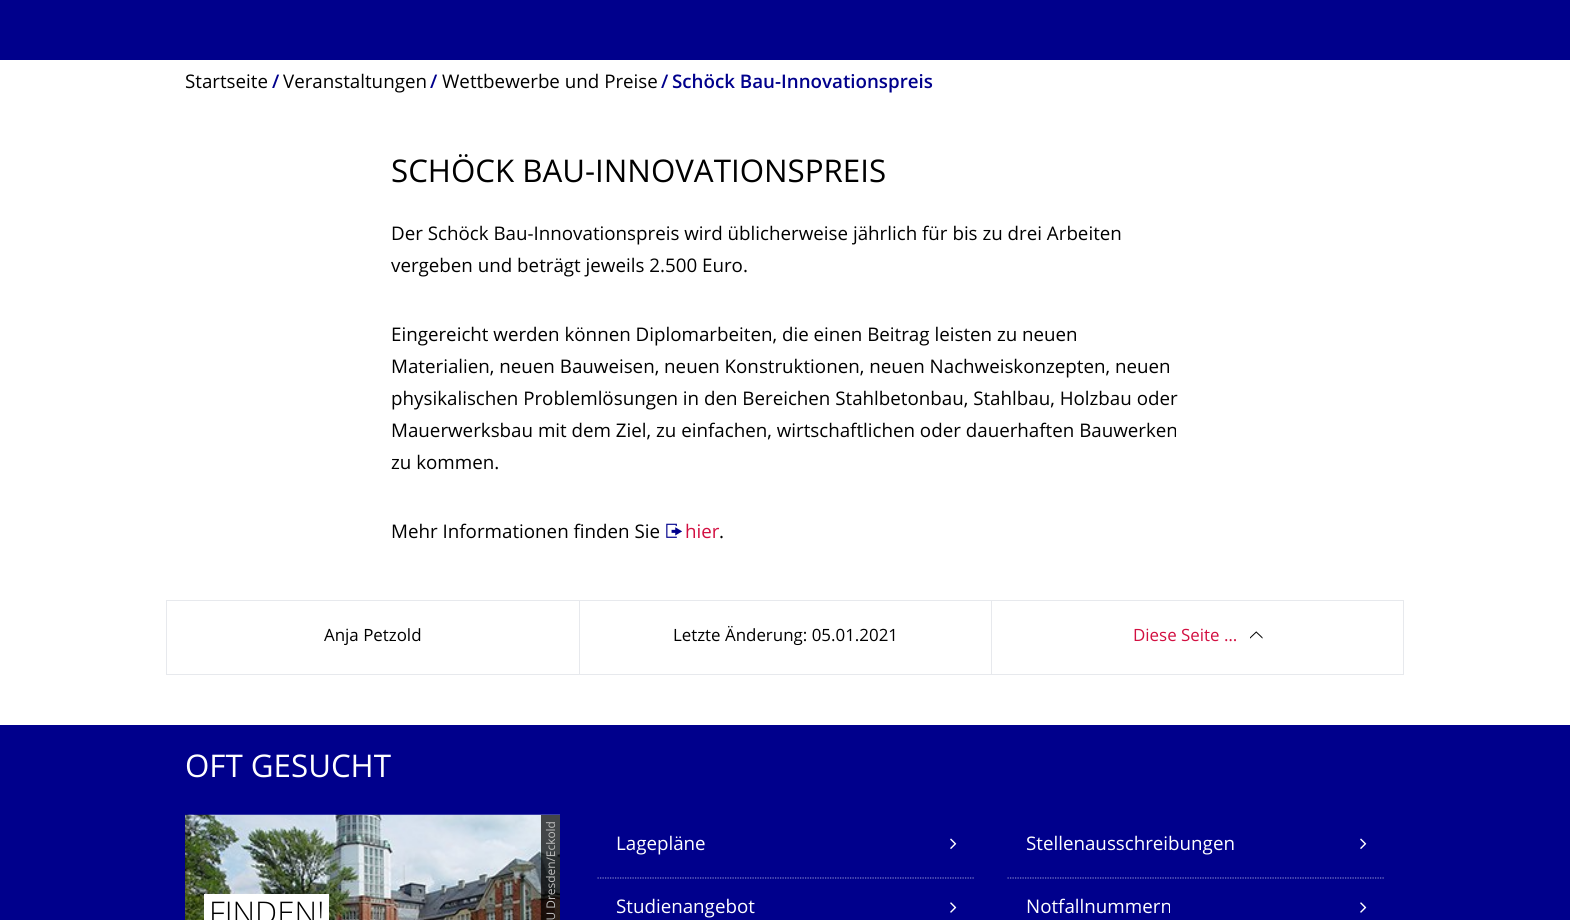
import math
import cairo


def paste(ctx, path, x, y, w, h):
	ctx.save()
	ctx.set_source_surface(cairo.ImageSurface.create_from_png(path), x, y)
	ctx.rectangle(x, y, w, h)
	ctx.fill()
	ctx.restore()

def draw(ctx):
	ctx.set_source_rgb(1, 1, 1)
	ctx.paint()
	ctx.set_source_rgb(0, 0, 0.549)
	ctx.rectangle(0, 0, 1570, 60)
	ctx.fill()
	ctx.select_font_face('Open Sans')
	ctx.set_font_size(18.75)
	ctx.set_source_rgb(0, 0, 0)
	ctx.move_to(185, 88)
	ctx.show_text('Startseite')
	ctx.select_font_face('Open Sans SemiBold')
	ctx.set_source_rgb(0, 0, 0.549)
	ctx.move_to(272, 88)
	ctx.show_text('/')
	ctx.select_font_face('Open Sans')
	ctx.set_source_rgb(0, 0, 0)
	ctx.move_to(283, 88)
	ctx.show_text('Veranstaltungen')
	ctx.select_font_face('Open Sans SemiBold')
	ctx.set_source_rgb(0, 0, 0.549)
	ctx.move_to(430, 88)
	ctx.show_text('/')
	ctx.select_font_face('Open Sans')
	ctx.set_source_rgb(0, 0, 0)
	ctx.move_to(442, 88)
	ctx.show_text('Wettbewerbe und Preise')
	ctx.select_font_face('Open Sans SemiBold')
	ctx.set_source_rgb(0, 0, 0.549)
	ctx.move_to(661, 88)
	ctx.show_text('/')
	ctx.move_to(672, 88)
	ctx.show_text('Schöck Bau-Innovationspreis')
	ctx.select_font_face('Open Sans')
	ctx.set_font_size(31.25)
	ctx.set_source_rgb(0, 0, 0)
	ctx.move_to(391, 182)
	ctx.show_text('SCHÖCK BAU-INNOVATIONSPREIS')
	ctx.set_font_size(18.75)
	for x, y, s in [
		(391, 240, 'Der Schöck Bau-Innovationspreis wird üblicherweise jährlich für bis zu drei Arbeiten'),
		(391, 272, 'vergeben und beträgt jeweils 2.500 Euro.'),
		(391, 341, 'Eingereicht werden können Diplomarbeiten, die einen Beitrag leisten zu neuen'),
		(391, 373, 'Materialien, neuen Bauweisen, neuen Konstruktionen, neuen Nachweiskonzepten, neuen'),
		(391, 405, 'physikalischen Problemlösungen in den Bereichen Stahlbetonbau, Stahlbau, Holzbau oder'),
		(391, 437, 'Mauerwerksbau mit dem Ziel, zu einfachen, wirtschaftlichen oder dauerhaften Bauwerken'),
		(391, 469, 'zu kommen.'),
		(391, 538, 'Mehr Informationen finden Sie'),
	]:
		ctx.move_to(x, y)
		ctx.show_text(s)
	paste(ctx, 'media/1.png', 666, 523, 16, 15)
	ctx.set_source_rgb(0.824, 0.059, 0.255)
	ctx.move_to(685, 538)
	ctx.show_text('hier')
	ctx.set_source_rgb(0, 0, 0)
	ctx.move_to(719, 538)
	ctx.show_text('.')
	ctx.set_source_rgb(0.906, 0.914, 0.929)
	ctx.rectangle(166, 600, 825, 1)
	ctx.rectangle(166, 674, 825, 1)
	ctx.rectangle(166, 600, 1, 75)
	ctx.fill()
	ctx.set_font_size(16.9)
	ctx.set_source_rgb(0, 0, 0)
	ctx.move_to(324, 641)
	ctx.show_text('Anja Petzold')
	ctx.set_source_rgb(0.906, 0.914, 0.929)
	ctx.rectangle(579, 600, 1, 75)
	ctx.fill()
	ctx.set_source_rgb(0, 0, 0)
	ctx.move_to(673, 641)
	ctx.show_text('Letzte Änderung: 05.01.2021')
	ctx.rectangle(991.5, 600.5, 412, 74)
	ctx.set_source_rgb(0.906, 0.914, 0.929)
	ctx.set_line_width(1)
	ctx.stroke()
	ctx.set_source_rgb(0.824, 0.059, 0.255)
	ctx.move_to(1133, 641)
	ctx.show_text('Diese Seite …')
	paste(ctx, 'media/2.png', 1250, 631, 13, 8)
	ctx.set_source_rgb(0, 0, 0.549)
	ctx.rectangle(0, 725, 1570, 195)
	ctx.fill()
	ctx.set_font_size(31.25)
	ctx.set_source_rgb(1, 1, 1)
	ctx.move_to(185, 777)
	ctx.show_text('OFT GESUCHT')
	paste(ctx, 'media/3.png', 185, 814, 375, 106)
	ctx.rectangle(204, 894, 125, 26)
	ctx.fill()
	ctx.select_font_face('Open Sans Light')
	ctx.set_source_rgb(0, 0, 0)
	ctx.move_to(209, 924)
	ctx.show_text('FINDEN!')
	ctx.set_source_rgba(0, 0, 0, 0.7)
	ctx.rectangle(541, 815, 19, 105)
	ctx.fill()
	ctx.select_font_face('Open Sans')
	ctx.set_font_size(11.9)
	ctx.set_source_rgb(0.753, 0.753, 0.753)
	ctx.save()
	ctx.translate(555, 940)
	ctx.rotate(-90 * math.pi / 180)
	ctx.move_to(0, 0)
	ctx.show_text('© TU Dresden/Eckold')
	ctx.restore()
	ctx.new_path()
	ctx.move_to(597.5, 878)
	ctx.line_to(975, 878)
	ctx.set_source_rgb(0.502, 0.502, 0.776)
	ctx.set_line_width(1.2)
	ctx.set_dash([1.25, 1.25])
	ctx.stroke()
	ctx.set_font_size(18.75)
	ctx.set_source_rgb(1, 1, 1)
	ctx.move_to(616, 850)
	ctx.show_text('Lagepläne')
	paste(ctx, 'media/4.png', 950, 838, 7, 11)
	ctx.new_path()
	ctx.move_to(1007.5, 878)
	ctx.line_to(1385, 878)
	ctx.set_source_rgb(0.502, 0.502, 0.776)
	ctx.stroke()
	ctx.set_source_rgb(1, 1, 1)
	ctx.move_to(1026, 850)
	ctx.show_text('Stellenausschreibungen')
	paste(ctx, 'media/4.png', 1360, 838, 7, 11)
	ctx.move_to(616, 913)
	ctx.show_text('Studienangebot')
	paste(ctx, 'media/5.png', 950, 902, 7, 11)
	ctx.move_to(1026, 913)
	ctx.show_text('Notfallnummern')
	paste(ctx, 'media/5.png', 1360, 902, 7, 11)


surface = cairo.ImageSurface(cairo.FORMAT_RGB24, 1570, 920)
ctx = cairo.Context(surface)
options = cairo.FontOptions()
options.set_hint_metrics(cairo.HINT_METRICS_OFF)
options.set_hint_style(cairo.HINT_STYLE_NONE)
ctx.set_font_options(options)
ctx.set_miter_limit(4)
draw(ctx)
surface.write_to_png('image.png')
